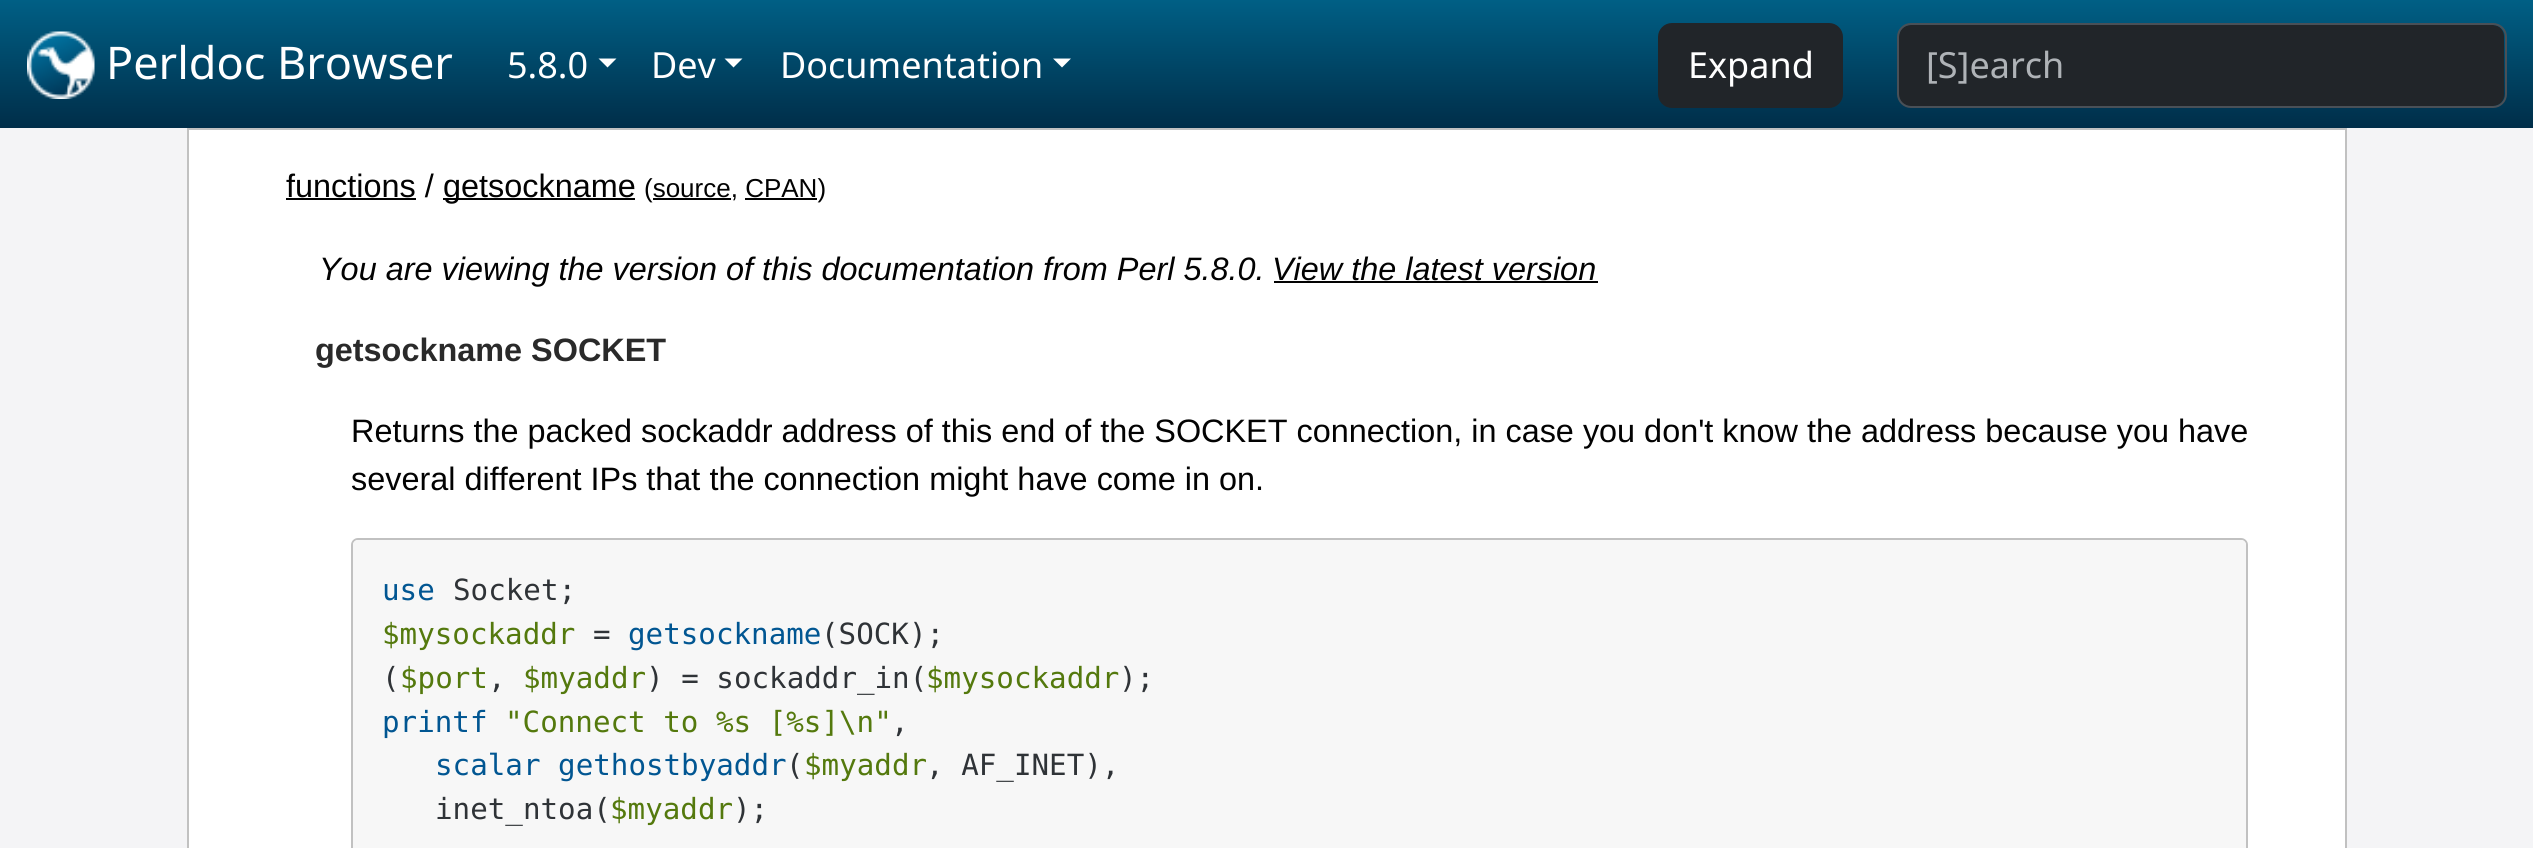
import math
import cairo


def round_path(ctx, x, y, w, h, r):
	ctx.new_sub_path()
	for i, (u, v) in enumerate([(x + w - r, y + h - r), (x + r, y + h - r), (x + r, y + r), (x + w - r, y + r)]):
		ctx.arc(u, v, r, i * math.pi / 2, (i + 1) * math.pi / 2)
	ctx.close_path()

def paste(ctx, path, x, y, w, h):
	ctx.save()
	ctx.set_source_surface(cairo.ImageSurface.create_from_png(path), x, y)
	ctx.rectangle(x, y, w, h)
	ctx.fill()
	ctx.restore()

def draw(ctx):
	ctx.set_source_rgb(0.957, 0.957, 0.961)
	ctx.paint()
	gradient = cairo.LinearGradient(1267, 0, 1267, 128)
	gradient.add_color_stop_rgba(0, 0, 0.373, 0.522, 1)
	gradient.add_color_stop_rgba(1, 0, 0.18, 0.286, 1)
	ctx.set_source(gradient)
	ctx.rectangle(0, 0, 2533, 128)
	ctx.fill()
	paste(ctx, 'media/1.png', 27, 31, 68, 68)
	ctx.select_font_face('Noto Sans')
	ctx.set_font_size(45)
	ctx.set_source_rgb(1, 1, 1)
	ctx.move_to(106, 79)
	ctx.show_text('Perldoc Browser')
	ctx.set_font_size(36)
	ctx.move_to(507, 78)
	ctx.show_text('5.8.0')
	ctx.new_path()
	ctx.move_to(598.5, 58.5)
	ctx.line_to(616.5, 58.5)
	ctx.line_to(607.5, 67.5)
	ctx.close_path()
	ctx.fill()
	ctx.move_to(651, 78)
	ctx.show_text('Dev')
	ctx.new_path()
	ctx.move_to(724.5, 58.5)
	ctx.line_to(742.5, 58.5)
	ctx.line_to(733.5, 67.5)
	ctx.close_path()
	ctx.fill()
	ctx.move_to(780, 78)
	ctx.show_text('Documentation')
	ctx.new_path()
	ctx.move_to(1053, 58.5)
	ctx.line_to(1071, 58.5)
	ctx.line_to(1062, 67.5)
	ctx.close_path()
	ctx.fill()
	ctx.set_source_rgb(0.129, 0.145, 0.161)
	round_path(ctx, 1659, 24, 183, 83, 13)
	ctx.fill_preserve()
	ctx.stroke()
	ctx.set_source_rgb(1, 1, 1)
	ctx.move_to(1688, 78)
	ctx.show_text('Expand')
	ctx.set_source_rgb(0.129, 0.145, 0.161)
	round_path(ctx, 1899, 25, 605, 81, 11)
	ctx.fill()
	round_path(ctx, 1898, 24, 608, 83, 13)
	ctx.set_source_rgb(0.286, 0.314, 0.341)
	ctx.stroke()
	ctx.set_source_rgb(0.686, 0.702, 0.718)
	ctx.move_to(1926, 78)
	ctx.show_text('[S]earch')
	ctx.set_source_rgb(1, 1, 1)
	ctx.rectangle(188, 129, 2158, 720)
	ctx.fill_preserve()
	ctx.set_source_rgb(0.757, 0.757, 0.757)
	ctx.stroke()
	ctx.select_font_face('Liberation Sans')
	ctx.set_font_size(32.4)
	ctx.set_source_rgb(0.008, 0.008, 0.008)
	ctx.move_to(286, 197)
	ctx.show_text('functions /')
	ctx.rectangle(286, 198, 130, 2)
	ctx.fill()
	ctx.rectangle(443, 198, 192, 2)
	ctx.fill()
	ctx.move_to(443, 197)
	ctx.show_text('getsockname')
	ctx.set_font_size(26)
	ctx.move_to(644, 197)
	ctx.show_text('(source, CPAN)')
	ctx.rectangle(653, 198, 78, 2)
	ctx.fill()
	ctx.rectangle(745, 198, 72, 2)
	ctx.fill()
	ctx.select_font_face('Liberation Sans', cairo.FONT_SLANT_ITALIC)
	ctx.set_font_size(32.4)
	ctx.move_to(319, 280)
	ctx.show_text('You are viewing the version of this documentation from Perl 5.8.0.')
	ctx.move_to(1272, 280)
	ctx.show_text('View the latest version')
	ctx.rectangle(1274, 281, 324, 2)
	ctx.fill()
	ctx.select_font_face('Liberation Sans', cairo.FONT_SLANT_NORMAL, cairo.FONT_WEIGHT_BOLD)
	ctx.set_source_rgb(0.165, 0.165, 0.165)
	ctx.move_to(315, 361)
	ctx.show_text('getsockname SOCKET')
	ctx.select_font_face('Liberation Sans')
	ctx.set_source_rgb(0.008, 0.008, 0.008)
	ctx.move_to(351, 442)
	ctx.show_text('Returns the packed sockaddr address of this end of the SOCKET connection, in case you don\'t know the address because you have')
	ctx.move_to(351, 490)
	ctx.show_text('several different IPs that the connection might have come in on.')
	round_path(ctx, 352, 539, 1895, 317, 6)
	ctx.set_source_rgb(0.757, 0.757, 0.757)
	ctx.stroke()
	ctx.set_source_rgb(0.965, 0.965, 0.965)
	round_path(ctx, 353, 540, 1893, 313, 5)
	ctx.fill()
	ctx.select_font_face('DejaVu Sans Mono')
	ctx.set_font_size(29.2)
	ctx.set_source_rgb(0.004, 0.337, 0.573)
	ctx.move_to(382, 600)
	ctx.show_text('use')
	ctx.set_source_rgb(0.184, 0.2, 0.216)
	ctx.move_to(453, 600)
	ctx.show_text('Socket;')
	ctx.set_source_rgb(0.329, 0.475, 0.051)
	ctx.move_to(382, 644)
	ctx.show_text('$mysockaddr')
	ctx.set_source_rgb(0.184, 0.2, 0.216)
	ctx.move_to(593, 644)
	ctx.show_text('=')
	ctx.set_source_rgb(0.004, 0.337, 0.573)
	ctx.move_to(628, 644)
	ctx.show_text('getsockname')
	ctx.set_source_rgb(0.184, 0.2, 0.216)
	ctx.move_to(821, 644)
	ctx.show_text('(SOCK);')
	ctx.move_to(382, 688)
	ctx.show_text('(')
	ctx.set_source_rgb(0.329, 0.475, 0.051)
	ctx.move_to(400, 688)
	ctx.show_text('$port')
	ctx.set_source_rgb(0.184, 0.2, 0.216)
	ctx.move_to(488, 688)
	ctx.show_text(',')
	ctx.set_source_rgb(0.329, 0.475, 0.051)
	ctx.move_to(523, 688)
	ctx.show_text('$myaddr')
	ctx.set_source_rgb(0.184, 0.2, 0.216)
	ctx.move_to(646, 688)
	ctx.show_text(') = sockaddr_in(')
	ctx.set_source_rgb(0.329, 0.475, 0.051)
	ctx.move_to(926, 688)
	ctx.show_text('$mysockaddr')
	ctx.set_source_rgb(0.184, 0.2, 0.216)
	ctx.move_to(1119, 688)
	ctx.show_text(');')
	ctx.set_source_rgb(0.004, 0.337, 0.573)
	ctx.move_to(382, 732)
	ctx.show_text('printf')
	ctx.set_source_rgb(0.329, 0.475, 0.051)
	ctx.move_to(505, 732)
	ctx.show_text('"Connect to %s [%s]\\n"')
	ctx.set_source_rgb(0.184, 0.2, 0.216)
	ctx.move_to(891, 732)
	ctx.show_text(',')
	ctx.set_source_rgb(0.004, 0.337, 0.573)
	ctx.move_to(435, 775)
	ctx.show_text('scalar gethostbyaddr')
	ctx.set_source_rgb(0.184, 0.2, 0.216)
	ctx.move_to(786, 775)
	ctx.show_text('(')
	ctx.set_source_rgb(0.329, 0.475, 0.051)
	ctx.move_to(804, 775)
	ctx.show_text('$myaddr')
	ctx.set_source_rgb(0.184, 0.2, 0.216)
	ctx.move_to(926, 775)
	ctx.show_text(', AF_INET),')
	ctx.move_to(435, 819)
	ctx.show_text('inet_ntoa(')
	ctx.set_source_rgb(0.329, 0.475, 0.051)
	ctx.move_to(610, 819)
	ctx.show_text('$myaddr')
	ctx.set_source_rgb(0.184, 0.2, 0.216)
	ctx.move_to(733, 819)
	ctx.show_text(');')


surface = cairo.ImageSurface(cairo.FORMAT_RGB24, 2533, 848)
ctx = cairo.Context(surface)
options = cairo.FontOptions()
options.set_hint_metrics(cairo.HINT_METRICS_OFF)
options.set_hint_style(cairo.HINT_STYLE_NONE)
ctx.set_font_options(options)
ctx.set_miter_limit(4)
draw(ctx)
surface.write_to_png('image.png')
